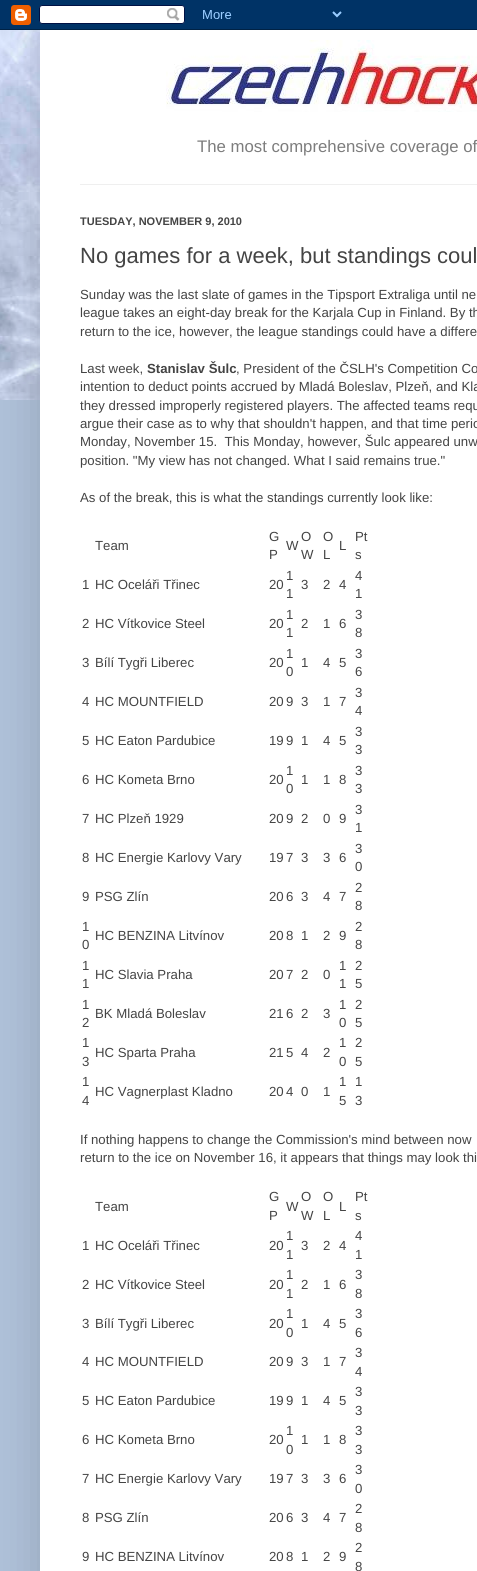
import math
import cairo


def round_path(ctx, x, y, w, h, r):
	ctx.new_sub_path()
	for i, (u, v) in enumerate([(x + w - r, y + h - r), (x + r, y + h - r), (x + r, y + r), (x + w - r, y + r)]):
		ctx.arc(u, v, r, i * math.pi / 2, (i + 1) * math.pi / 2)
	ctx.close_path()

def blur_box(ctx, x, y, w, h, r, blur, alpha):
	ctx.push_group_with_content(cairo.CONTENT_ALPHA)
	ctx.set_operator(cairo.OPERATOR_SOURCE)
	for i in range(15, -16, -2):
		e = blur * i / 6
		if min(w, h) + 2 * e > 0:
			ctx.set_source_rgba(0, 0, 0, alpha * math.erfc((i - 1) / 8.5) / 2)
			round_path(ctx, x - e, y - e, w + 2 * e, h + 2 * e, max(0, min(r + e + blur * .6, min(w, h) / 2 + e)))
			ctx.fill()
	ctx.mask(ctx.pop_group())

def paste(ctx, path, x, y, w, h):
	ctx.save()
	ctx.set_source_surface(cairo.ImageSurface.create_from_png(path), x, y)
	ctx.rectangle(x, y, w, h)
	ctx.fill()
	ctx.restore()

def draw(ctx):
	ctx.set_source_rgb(0.682, 0.753, 0.847)
	ctx.paint()
	paste(ctx, 'media/2.png', 0, 30, 40, 370)
	ctx.set_source_rgb(0, 0, 0)
	blur_box(ctx, 40, 30, 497, 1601, 0, 20, 0.15)
	paste(ctx, 'media/1.png', 0, 0, 477, 30)
	ctx.set_source_rgb(1, 1, 1)
	ctx.rectangle(40, 30, 437, 1541)
	ctx.fill()
	paste(ctx, 'media/3.png', 166, 40, 311, 72)
	ctx.select_font_face('Liberation Sans')
	ctx.set_font_size(16.75)
	ctx.set_source_rgb(0.49, 0.49, 0.49)
	ctx.move_to(197, 152)
	ctx.show_text('The most comprehensive coverage of')
	ctx.set_source_rgb(0.937, 0.937, 0.937)
	ctx.rectangle(80, 184, 397, 1)
	ctx.fill()
	ctx.select_font_face('Liberation Sans', cairo.FONT_SLANT_NORMAL, cairo.FONT_WEIGHT_BOLD)
	ctx.set_font_size(11)
	ctx.set_source_rgb(0.267, 0.267, 0.267)
	ctx.move_to(80, 225)
	ctx.show_text('TUESDAY, NOVEMBER 9, 2010')
	ctx.select_font_face('Liberation Sans')
	ctx.set_font_size(22)
	ctx.move_to(80, 263)
	ctx.show_text('No games for a week, but standings coul')
	ctx.set_font_size(13.2)
	for x, y, s in [
		(80, 299, 'Sunday was the last slate of games in the Tipsport Extraliga until ne'),
		(80, 317, 'league takes an eight-day break for the Karjala Cup in Finland. By th'),
		(80, 336, 'return to the ice, however, the league standings could have a differe'),
		(80, 373, 'Last week,'),
	]:
		ctx.move_to(x, y)
		ctx.show_text(s)
	ctx.select_font_face('Liberation Sans', cairo.FONT_SLANT_NORMAL, cairo.FONT_WEIGHT_BOLD)
	ctx.move_to(147, 373)
	ctx.show_text('Stanislav Šulc')
	ctx.select_font_face('Liberation Sans')
	for x, y, s in [
		(236, 373, ', President of the ČSLH\'s Competition Co'),
		(80, 391, 'intention to deduct points accrued by Mladá Boleslav, Plzeň, and Kla'),
		(80, 410, 'they dressed improperly registered players. The affected teams requ'),
		(80, 428, 'argue their case as to why that shouldn\'t happen, and that time perio'),
		(80, 446, 'Monday, November 15.  This Monday, however, Šulc appeared unw'),
		(80, 465, 'position. "My view has not changed. What I said remains true."'),
		(80, 502, 'As of the break, this is what the standings currently look like:'),
		(95, 550, 'Team'),
		(269, 541, 'G'),
		(269, 559, 'P'),
		(286, 550, 'W'),
		(301, 541, 'O'),
		(301, 559, 'W'),
		(323, 541, 'O'),
		(323, 559, 'L'),
		(339, 550, 'L'),
		(355, 541, 'Pt'),
		(355, 559, 's'),
		(82, 589, '1'),
		(95, 589, 'HC Oceláři Třinec'),
		(269, 589, '20'),
		(286, 580, '1'),
		(286, 598, '1'),
		(301, 589, '3'),
		(323, 589, '2'),
		(339, 589, '4'),
		(355, 580, '4'),
		(355, 598, '1'),
		(82, 628, '2'),
		(95, 628, 'HC Vítkovice Steel'),
		(269, 628, '20'),
		(286, 619, '1'),
		(286, 637, '1'),
		(301, 628, '2'),
		(323, 628, '1'),
		(339, 628, '6'),
		(355, 619, '3'),
		(355, 637, '8'),
		(82, 667, '3'),
		(95, 667, 'Bílí Tygři Liberec'),
		(269, 667, '20'),
		(286, 658, '1'),
		(286, 676, '0'),
		(301, 667, '1'),
		(323, 667, '4'),
		(339, 667, '5'),
		(355, 658, '3'),
		(355, 676, '6'),
		(82, 706, '4'),
		(95, 706, 'HC MOUNTFIELD'),
		(269, 706, '20'),
		(286, 706, '9'),
		(301, 706, '3'),
		(323, 706, '1'),
		(339, 706, '7'),
		(355, 697, '3'),
		(355, 715, '4'),
		(82, 745, '5'),
		(95, 745, 'HC Eaton Pardubice'),
		(269, 745, '19'),
		(286, 745, '9'),
		(301, 745, '1'),
		(323, 745, '4'),
		(339, 745, '5'),
		(355, 736, '3'),
		(355, 754, '3'),
		(82, 784, '6'),
		(95, 784, 'HC Kometa Brno'),
		(269, 784, '20'),
		(286, 775, '1'),
		(286, 793, '0'),
		(301, 784, '1'),
		(323, 784, '1'),
		(339, 784, '8'),
		(355, 775, '3'),
		(355, 793, '3'),
		(82, 823, '7'),
		(95, 823, 'HC Plzeň 1929'),
		(269, 823, '20'),
		(286, 823, '9'),
		(301, 823, '2'),
		(323, 823, '0'),
		(339, 823, '9'),
		(355, 814, '3'),
		(355, 832, '1'),
		(82, 862, '8'),
		(95, 862, 'HC Energie Karlovy Vary'),
		(269, 862, '19'),
		(286, 862, '7'),
		(301, 862, '3'),
		(323, 862, '3'),
		(339, 862, '6'),
		(355, 853, '3'),
		(355, 871, '0'),
		(82, 901, '9'),
		(95, 901, 'PSG Zlín'),
		(269, 901, '20'),
		(286, 901, '6'),
		(301, 901, '3'),
		(323, 901, '4'),
		(339, 901, '7'),
		(355, 892, '2'),
		(355, 910, '8'),
		(82, 931, '1'),
		(82, 949, '0'),
		(95, 940, 'HC BENZINA Litvínov'),
		(269, 940, '20'),
		(286, 940, '8'),
		(301, 940, '1'),
		(323, 940, '2'),
		(339, 940, '9'),
		(355, 931, '2'),
		(355, 949, '8'),
		(82, 970, '1'),
		(82, 988, '1'),
		(95, 979, 'HC Slavia Praha'),
		(269, 979, '20'),
		(286, 979, '7'),
		(301, 979, '2'),
		(323, 979, '0'),
		(339, 970, '1'),
		(339, 988, '1'),
		(355, 970, '2'),
		(355, 988, '5'),
		(82, 1009, '1'),
		(82, 1027, '2'),
		(95, 1018, 'BK Mladá Boleslav'),
		(269, 1018, '21'),
		(286, 1018, '6'),
		(301, 1018, '2'),
		(323, 1018, '3'),
		(339, 1009, '1'),
		(339, 1027, '0'),
		(355, 1009, '2'),
		(355, 1027, '5'),
		(82, 1047, '1'),
		(82, 1066, '3'),
		(95, 1057, 'HC Sparta Praha'),
		(269, 1057, '21'),
		(286, 1057, '5'),
		(301, 1057, '4'),
		(323, 1057, '2'),
		(339, 1047, '1'),
		(339, 1066, '0'),
		(355, 1047, '2'),
		(355, 1066, '5'),
		(82, 1086, '1'),
		(82, 1105, '4'),
		(95, 1096, 'HC Vagnerplast Kladno'),
		(269, 1096, '20'),
		(286, 1096, '4'),
		(301, 1096, '0'),
		(323, 1096, '1'),
		(339, 1086, '1'),
		(339, 1105, '5'),
		(355, 1086, '1'),
		(355, 1105, '3'),
		(80, 1144, 'If nothing happens to change the Commission\'s mind between now'),
		(80, 1162, 'return to the ice on November 16, it appears that things may look thi'),
		(95, 1211, 'Team'),
		(269, 1201, 'G'),
		(269, 1220, 'P'),
		(286, 1211, 'W'),
		(301, 1201, 'O'),
		(301, 1220, 'W'),
		(323, 1201, 'O'),
		(323, 1220, 'L'),
		(339, 1211, 'L'),
		(355, 1201, 'Pt'),
		(355, 1220, 's'),
		(82, 1250, '1'),
		(95, 1250, 'HC Oceláři Třinec'),
		(269, 1250, '20'),
		(286, 1240, '1'),
		(286, 1259, '1'),
		(301, 1250, '3'),
		(323, 1250, '2'),
		(339, 1250, '4'),
		(355, 1240, '4'),
		(355, 1259, '1'),
		(82, 1289, '2'),
		(95, 1289, 'HC Vítkovice Steel'),
		(269, 1289, '20'),
		(286, 1279, '1'),
		(286, 1298, '1'),
		(301, 1289, '2'),
		(323, 1289, '1'),
		(339, 1289, '6'),
		(355, 1279, '3'),
		(355, 1298, '8'),
		(82, 1328, '3'),
		(95, 1328, 'Bílí Tygři Liberec'),
		(269, 1328, '20'),
		(286, 1318, '1'),
		(286, 1337, '0'),
		(301, 1328, '1'),
		(323, 1328, '4'),
		(339, 1328, '5'),
		(355, 1318, '3'),
		(355, 1337, '6'),
		(82, 1366, '4'),
		(95, 1366, 'HC MOUNTFIELD'),
		(269, 1366, '20'),
		(286, 1366, '9'),
		(301, 1366, '3'),
		(323, 1366, '1'),
		(339, 1366, '7'),
		(355, 1357, '3'),
		(355, 1376, '4'),
		(82, 1405, '5'),
		(95, 1405, 'HC Eaton Pardubice'),
		(269, 1405, '19'),
		(286, 1405, '9'),
		(301, 1405, '1'),
		(323, 1405, '4'),
		(339, 1405, '5'),
		(355, 1396, '3'),
		(355, 1415, '3'),
		(82, 1444, '6'),
		(95, 1444, 'HC Kometa Brno'),
		(269, 1444, '20'),
		(286, 1435, '1'),
		(286, 1454, '0'),
		(301, 1444, '1'),
		(323, 1444, '1'),
		(339, 1444, '8'),
		(355, 1435, '3'),
		(355, 1454, '3'),
		(82, 1483, '7'),
		(95, 1483, 'HC Energie Karlovy Vary'),
		(269, 1483, '19'),
		(286, 1483, '7'),
		(301, 1483, '3'),
		(323, 1483, '3'),
		(339, 1483, '6'),
		(355, 1474, '3'),
		(355, 1493, '0'),
		(82, 1522, '8'),
		(95, 1522, 'PSG Zlín'),
		(269, 1522, '20'),
		(286, 1522, '6'),
		(301, 1522, '3'),
		(323, 1522, '4'),
		(339, 1522, '7'),
		(355, 1513, '2'),
		(355, 1532, '8'),
		(82, 1561, '9'),
		(95, 1561, 'HC BENZINA Litvínov'),
		(269, 1561, '20'),
		(286, 1561, '8'),
		(301, 1561, '1'),
		(323, 1561, '2'),
		(339, 1561, '9'),
		(355, 1552, '2'),
		(355, 1571, '8'),
	]:
		ctx.move_to(x, y)
		ctx.show_text(s)


surface = cairo.ImageSurface(cairo.FORMAT_RGB24, 477, 1571)
ctx = cairo.Context(surface)
options = cairo.FontOptions()
options.set_hint_metrics(cairo.HINT_METRICS_OFF)
options.set_hint_style(cairo.HINT_STYLE_NONE)
ctx.set_font_options(options)
ctx.set_miter_limit(4)
draw(ctx)
surface.write_to_png('image.png')
